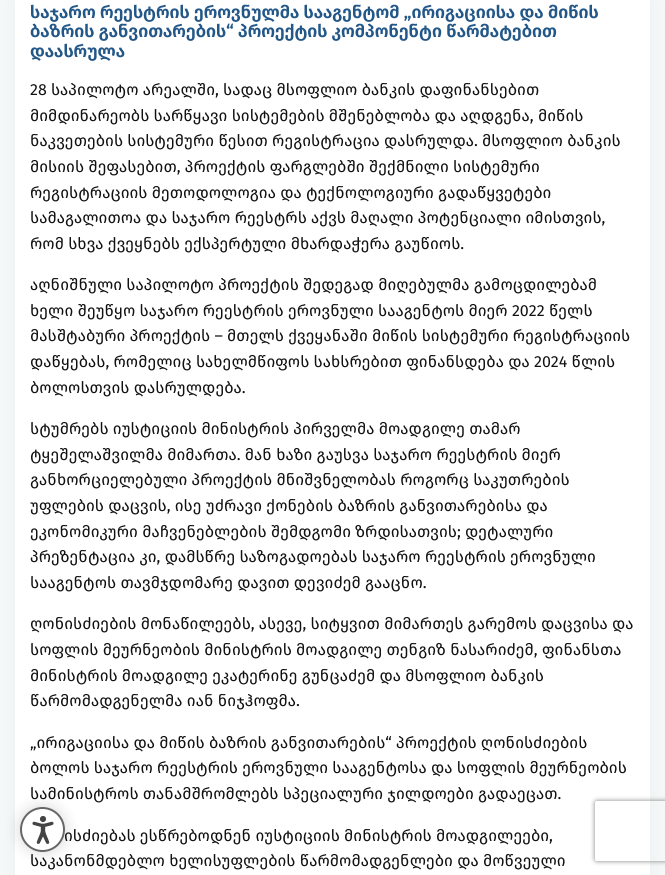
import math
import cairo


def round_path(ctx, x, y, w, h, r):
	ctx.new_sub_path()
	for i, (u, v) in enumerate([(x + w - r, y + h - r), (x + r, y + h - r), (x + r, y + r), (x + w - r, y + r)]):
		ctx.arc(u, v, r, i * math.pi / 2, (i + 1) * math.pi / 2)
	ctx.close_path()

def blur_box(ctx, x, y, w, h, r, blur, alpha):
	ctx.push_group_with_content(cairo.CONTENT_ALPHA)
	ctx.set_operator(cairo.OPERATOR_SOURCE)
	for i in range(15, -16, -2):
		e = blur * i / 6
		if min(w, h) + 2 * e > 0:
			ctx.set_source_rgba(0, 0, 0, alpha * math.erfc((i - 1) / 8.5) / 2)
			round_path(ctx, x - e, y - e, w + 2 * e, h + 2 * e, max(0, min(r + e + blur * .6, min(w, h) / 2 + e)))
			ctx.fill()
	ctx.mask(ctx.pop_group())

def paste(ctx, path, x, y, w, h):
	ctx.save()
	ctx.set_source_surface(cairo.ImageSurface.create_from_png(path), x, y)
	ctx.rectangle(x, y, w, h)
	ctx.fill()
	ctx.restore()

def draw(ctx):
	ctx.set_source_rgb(0.961, 0.973, 0.976)
	ctx.paint()
	ctx.set_source_rgb(0, 0, 0)
	blur_box(ctx, 15, -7, 635, 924, 12, 10, 0.05)
	ctx.set_source_rgb(1, 1, 1)
	ctx.rectangle(15, 0, 635, 875)
	ctx.fill()
	ctx.select_font_face('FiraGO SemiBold')
	ctx.set_font_size(17.6)
	ctx.set_source_rgb(0.137, 0.341, 0.533)
	for x, y, s in [
		(30, 18, 'საჯარო რეესტრის ეროვნულმა სააგენტომ „ირიგაციისა და მიწის'),
		(30, 37, 'ბაზრის განვითარების“ პროექტის კომპონენტი წარმატებით'),
		(30, 57, 'დაასრულა'),
	]:
		ctx.move_to(x, y)
		ctx.show_text(s)
	ctx.select_font_face('FiraGO')
	ctx.set_font_size(16)
	ctx.set_source_rgb(0.067, 0.067, 0.067)
	for x, y, s in [
		(30, 95, '28 საპილოტო არეალში, სადაც მსოფლიო ბანკის დაფინანსებით'),
		(30, 121, 'მიმდინარეობს სარწყავი სისტემების მშენებლობა და აღდგენა, მიწის'),
		(30, 146, 'ნაკვეთების სისტემური წესით რეგისტრაცია დასრულდა. მსოფლიო ბანკის'),
		(30, 172, 'მისიის შეფასებით, პროექტის ფარგლებში შექმნილი სისტემური'),
		(30, 198, 'რეგისტრაციის მეთოდოლოგია და ტექნოლოგიური გადაწყვეტები'),
		(30, 223, 'სამაგალითოა და საჯარო რეესტრს აქვს მაღალი პოტენციალი იმისთვის,'),
		(30, 249, 'რომ სხვა ქვეყნებს ექსპერტული მხარდაჭერა გაუწიოს.'),
		(30, 290, 'აღნიშნული საპილოტო პროექტის შედეგად მიღებულმა გამოცდილებამ'),
		(30, 316, 'ხელი შეუწყო საჯარო რეესტრის ეროვნული სააგენტოს მიერ 2022 წელს'),
		(30, 341, 'მასშტაბური პროექტის – მთელს ქვეყანაში მიწის სისტემური რეგისტრაციის'),
		(30, 367, 'დაწყებას, რომელიც სახელმწიფოს სახსრებით ფინანსდება და 2024 წლის'),
		(30, 393, 'ბოლოსთვის დასრულდება.'),
		(30, 434, 'სტუმრებს იუსტიციის მინისტრის პირველმა მოადგილე თამარ'),
		(30, 460, 'ტყეშელაშვილმა მიმართა. მან ხაზი გაუსვა საჯარო რეესტრის მიერ'),
		(30, 485, 'განხორციელებული პროექტის მნიშვნელობას როგორც საკუთრების'),
		(30, 511, 'უფლების დაცვის, ისე უძრავი ქონების ბაზრის განვითარებისა და'),
		(30, 537, 'ეკონომიკური მაჩვენებლების შემდგომი ზრდისათვის; დეტალური'),
		(30, 562, 'პრეზენტაცია კი, დამსწრე საზოგადოებას საჯარო რეესტრის ეროვნული'),
		(30, 588, 'სააგენტოს თავმჯდომარე დავით დევიძემ გააცნო.'),
		(30, 629, 'ღონისძიების მონაწილეებს, ასევე, სიტყვით მიმართეს გარემოს დაცვისა და'),
		(30, 655, 'სოფლის მეურნეობის მინისტრის მოადგილე თენგიზ ნასარიძემ, ფინანსთა'),
		(30, 681, 'მინისტრის მოადგილე ეკატერინე გუნცაძემ და მსოფლიო ბანკის'),
		(30, 706, 'წარმომადგენელმა იან ნიჯჰოფმა.'),
		(30, 748, '„ირიგაციისა და მიწის ბაზრის განვითარების“ პროექტის ღონისძიების'),
		(30, 773, 'ბოლოს საჯარო რეესტრის ეროვნული სააგენტოსა და სოფლის მეურნეობის'),
		(30, 799, 'სამინისტროს თანამშრომლებს სპეციალური ჯილდოები გადაეცათ.'),
		(64, 841, 'ისძიებას ესწრებოდნენ იუსტიციის მინისტრის მოადგილეები,'),
		(30, 866, 'საკანონმდებლო ხელისუფლების წარმომადგენლები და მოწვეული'),
	]:
		ctx.move_to(x, y)
		ctx.show_text(s)
	ctx.set_source_rgb(0, 0, 0)
	blur_box(ctx, 20, 807, 45, 45, 22.5, 7.5, 0.15)
	ctx.set_source_rgb(1, 1, 1)
	ctx.arc(42.5, 829.5, 22.5, 0, 2 * math.pi)
	ctx.fill()
	paste(ctx, 'media/1.png', 32, 816, 22, 28)
	ctx.arc(42.5, 829.5, 21.5, 0, 2 * math.pi)
	ctx.set_source_rgb(0.4, 0.4, 0.4)
	ctx.stroke()
	ctx.save()
	ctx.set_fill_rule(cairo.FILL_RULE_EVEN_ODD)
	ctx.new_path()
	ctx.move_to(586, 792)
	ctx.line_to(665, 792)
	ctx.line_to(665, 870)
	ctx.line_to(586, 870)
	ctx.close_path()
	ctx.move_to(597, 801)
	ctx.line_to(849, 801)
	ctx.curve_to(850, 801, 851, 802, 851, 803)
	ctx.line_to(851, 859)
	ctx.curve_to(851, 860, 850, 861, 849, 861)
	ctx.line_to(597, 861)
	ctx.curve_to(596, 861, 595, 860, 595, 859)
	ctx.line_to(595, 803)
	ctx.curve_to(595, 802, 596, 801, 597, 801)
	ctx.close_path()
	ctx.clip()
	ctx.set_source_rgb(0.502, 0.502, 0.502)
	blur_box(ctx, 595, 801, 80, 60, 2, 2.5, 1)
	ctx.restore()


surface = cairo.ImageSurface(cairo.FORMAT_RGB24, 665, 875)
ctx = cairo.Context(surface)
options = cairo.FontOptions()
options.set_hint_metrics(cairo.HINT_METRICS_OFF)
options.set_hint_style(cairo.HINT_STYLE_NONE)
ctx.set_font_options(options)
ctx.set_miter_limit(4)
draw(ctx)
surface.write_to_png('image.png')
